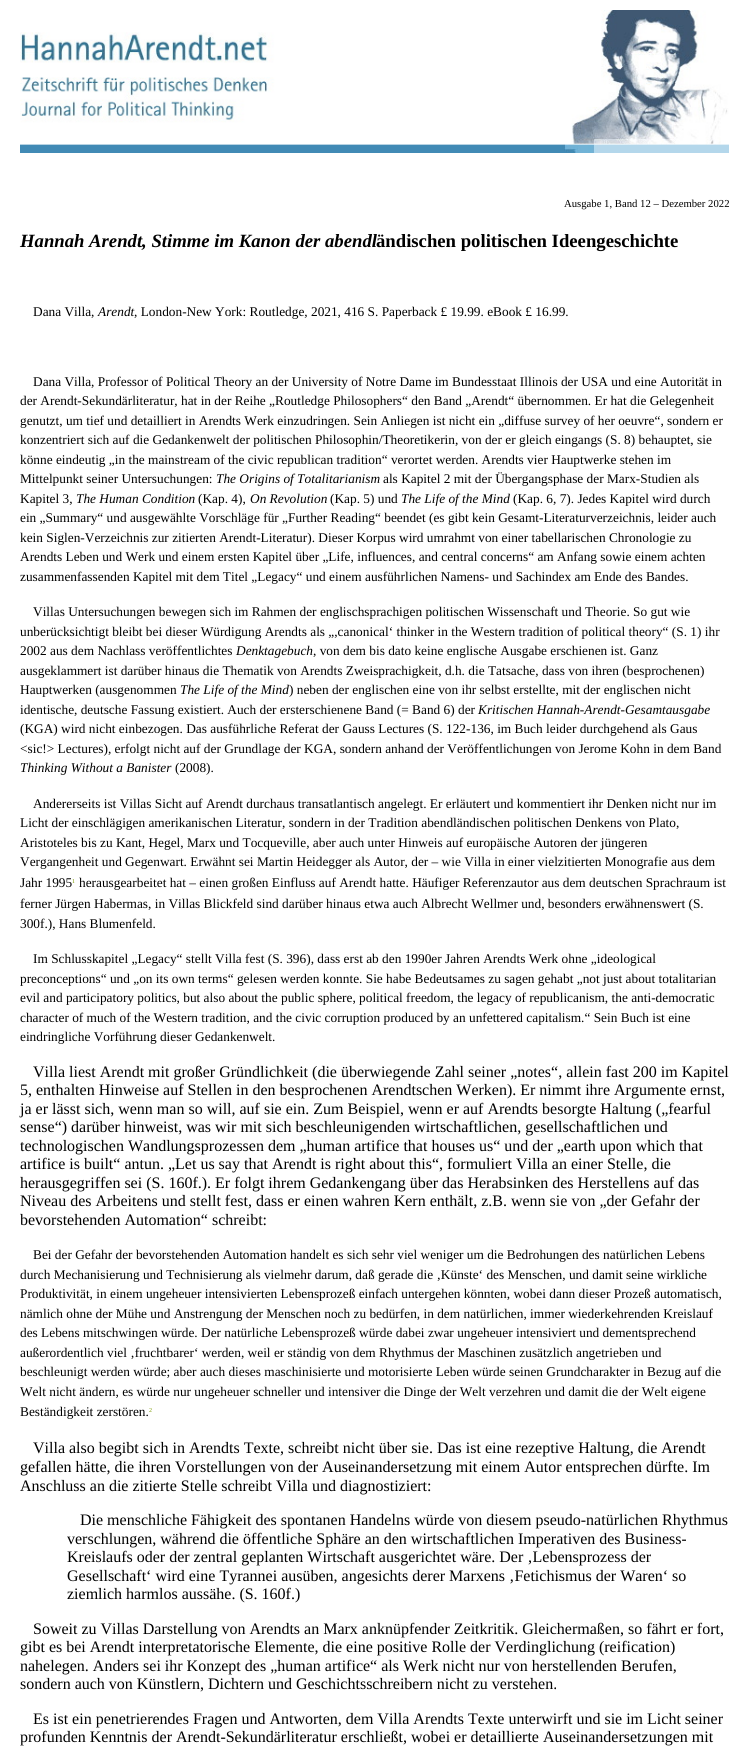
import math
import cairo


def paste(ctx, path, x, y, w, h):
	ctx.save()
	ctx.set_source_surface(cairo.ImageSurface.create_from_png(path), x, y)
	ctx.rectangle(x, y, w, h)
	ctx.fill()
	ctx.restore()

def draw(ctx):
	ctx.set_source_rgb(1, 1, 1)
	ctx.paint()
	paste(ctx, 'media/1.png', 20, 10, 709, 143)
	ctx.select_font_face('Liberation Serif')
	ctx.set_font_size(10.7)
	ctx.set_source_rgb(0, 0, 0)
	ctx.move_to(564, 207)
	ctx.show_text('Ausgabe 1, Band 12 – Dezember 2022')
	ctx.select_font_face('Liberation Serif', cairo.FONT_SLANT_ITALIC, cairo.FONT_WEIGHT_BOLD)
	ctx.set_font_size(18.7)
	ctx.move_to(20, 247)
	ctx.show_text('Hannah Arendt, Stimme im Kanon der abendl')
	ctx.select_font_face('Liberation Serif', cairo.FONT_SLANT_NORMAL, cairo.FONT_WEIGHT_BOLD)
	ctx.move_to(376, 247)
	ctx.show_text('ändischen politischen Ideengeschichte')
	ctx.select_font_face('Liberation Serif')
	ctx.set_font_size(13.33)
	ctx.move_to(33, 316)
	ctx.show_text('Dana Villa,')
	ctx.select_font_face('Liberation Serif', cairo.FONT_SLANT_ITALIC)
	ctx.move_to(98, 316)
	ctx.show_text('Arendt')
	ctx.select_font_face('Liberation Serif')
	for x, y, s in [
		(134, 316, ', London-New York: Routledge, 2021, 416 S. Paperback £ 19.99. eBook £ 16.99.'),
		(33, 386, 'Dana Villa, Professor of Political Theory an der University of Notre Dame im Bundesstaat Illinois der USA und eine Autorität in'),
		(20, 405, 'der Arendt-Sekundärliteratur, hat in der Reihe „Routledge Philosophers“ den Band „Arendt“ übernommen. Er hat die Gelegenheit'),
		(20, 425, 'genutzt, um tief und detailliert in Arendts Werk einzudringen. Sein Anliegen ist nicht ein „diffuse survey of her oeuvre“, sondern er'),
		(20, 444, 'konzentriert sich auf die Gedankenwelt der politischen Philosophin/Theoretikerin, von der er gleich eingangs (S. 8) behauptet, sie'),
		(20, 464, 'könne eindeutig „in the mainstream of the civic republican tradition“ verortet werden. Arendts vier Hauptwerke stehen im'),
		(20, 483, 'Mittelpunkt seiner Untersuchungen:'),
	]:
		ctx.move_to(x, y)
		ctx.show_text(s)
	ctx.select_font_face('Liberation Serif', cairo.FONT_SLANT_ITALIC)
	ctx.move_to(216, 483)
	ctx.show_text('The Origins of Totalitarianism')
	ctx.select_font_face('Liberation Serif')
	ctx.move_to(383, 483)
	ctx.show_text('als Kapitel 2 mit der Übergangsphase der Marx-Studien als')
	ctx.move_to(20, 503)
	ctx.show_text('Kapitel 3,')
	ctx.select_font_face('Liberation Serif', cairo.FONT_SLANT_ITALIC)
	ctx.move_to(76, 503)
	ctx.show_text('The Human Condition')
	ctx.select_font_face('Liberation Serif')
	ctx.move_to(198, 503)
	ctx.show_text('(Kap. 4),')
	ctx.select_font_face('Liberation Serif', cairo.FONT_SLANT_ITALIC)
	ctx.move_to(250, 503)
	ctx.show_text('On Revolution')
	ctx.select_font_face('Liberation Serif')
	ctx.move_to(330, 503)
	ctx.show_text('(Kap. 5) und')
	ctx.select_font_face('Liberation Serif', cairo.FONT_SLANT_ITALIC)
	ctx.move_to(401, 503)
	ctx.show_text('The Life of the Mind')
	ctx.select_font_face('Liberation Serif')
	for x, y, s in [
		(513, 503, '(Kap. 6, 7). Jedes Kapitel wird durch'),
		(20, 522, 'ein „Summary“ und ausgewählte Vorschläge für „Further Reading“ beendet (es gibt kein Gesamt-Literaturverzeichnis, leider auch'),
		(20, 542, 'kein Siglen-Verzeichnis zur zitierten Arendt-Literatur). Dieser Korpus wird umrahmt von einer tabellarischen Chronologie zu'),
		(20, 561, 'Arendts Leben und Werk und einem ersten Kapitel über „Life, influences, and central concerns“ am Anfang sowie einem achten'),
		(20, 581, 'zusammenfassenden Kapitel mit dem Titel „Legacy“ und einem ausführlichen Namens- und Sachindex am Ende des Bandes.'),
		(33, 616, 'Villas Untersuchungen bewegen sich im Rahmen der englischsprachigen politischen Wissenschaft und Theorie. So gut wie'),
		(20, 636, 'unberücksichtigt bleibt bei dieser Würdigung Arendts als „,canonical‘ thinker in the Western tradition of political theory“ (S. 1) ihr'),
		(20, 655, '2002 aus dem Nachlass veröffentlichtes'),
	]:
		ctx.move_to(x, y)
		ctx.show_text(s)
	ctx.select_font_face('Liberation Serif', cairo.FONT_SLANT_ITALIC)
	ctx.move_to(236, 655)
	ctx.show_text('Denktagebuch')
	ctx.select_font_face('Liberation Serif')
	for x, y, s in [
		(313, 655, ', von dem bis dato keine englische Ausgabe erschienen ist. Ganz'),
		(20, 675, 'ausgeklammert ist darüber hinaus die Thematik von Arendts Zweisprachigkeit, d.h. die Tatsache, dass von ihren (besprochenen)'),
		(20, 694, 'Hauptwerken (ausgenommen'),
	]:
		ctx.move_to(x, y)
		ctx.show_text(s)
	ctx.select_font_face('Liberation Serif', cairo.FONT_SLANT_ITALIC)
	ctx.move_to(180, 694)
	ctx.show_text('The Life of the Mind')
	ctx.select_font_face('Liberation Serif')
	ctx.move_to(289, 694)
	ctx.show_text(') neben der englischen eine von ihr selbst erstellte, mit der englischen nicht')
	ctx.move_to(20, 714)
	ctx.show_text('identische, deutsche Fassung existiert. Auch der ersterschienene Band (= Band 6) der')
	ctx.select_font_face('Liberation Serif', cairo.FONT_SLANT_ITALIC)
	ctx.move_to(478, 714)
	ctx.show_text('Kritischen Hannah-Arendt-Gesamtausgabe')
	ctx.select_font_face('Liberation Serif')
	ctx.move_to(20, 733)
	ctx.show_text('(KGA) wird nicht einbezogen. Das ausführliche Referat der Gauss Lectures (S. 122-136, im Buch leider durchgehend als Gaus')
	ctx.move_to(20, 753)
	ctx.show_text('<sic!> Lectures), erfolgt nicht auf der Grundlage der KGA, sondern anhand der Veröffentlichungen von Jerome Kohn in dem Band')
	ctx.select_font_face('Liberation Serif', cairo.FONT_SLANT_ITALIC)
	ctx.move_to(20, 772)
	ctx.show_text('Thinking Without a Banister')
	ctx.select_font_face('Liberation Serif')
	for x, y, s in [
		(175, 772, '(2008).'),
		(33, 808, 'Andererseits ist Villas Sicht auf Arendt durchaus transatlantisch angelegt. Er erläutert und kommentiert ihr Denken nicht nur im'),
		(20, 827, 'Licht der einschlägigen amerikanischen Literatur, sondern in der Tradition abendländischen politischen Denkens von Plato,'),
		(20, 847, 'Aristoteles bis zu Kant, Hegel, Marx und Tocqueville, aber auch unter Hinweis auf europäische Autoren der jüngeren'),
		(20, 866, 'Vergangenheit und Gegenwart. Erwähnt sei Martin Heidegger als Autor, der – wie Villa in einer vielzitierten Monografie aus dem'),
		(20, 887, 'Jahr 1995'),
	]:
		ctx.move_to(x, y)
		ctx.show_text(s)
	ctx.set_font_size(6)
	ctx.set_source_rgb(0.478, 0.6, 0)
	ctx.move_to(72, 883)
	ctx.show_text('1')
	ctx.set_font_size(13.33)
	ctx.set_source_rgb(0, 0, 0)
	for x, y, s in [
		(79, 887, 'herausgearbeitet hat – einen großen Einfluss auf Arendt hatte. Häufiger Referenzautor aus dem deutschen Sprachraum ist'),
		(20, 908, 'ferner Jürgen Habermas, in Villas Blickfeld sind darüber hinaus etwa auch Albrecht Wellmer und, besonders erwähnenswert (S.'),
		(20, 928, '300f.), Hans Blumenfeld.'),
		(33, 963, 'Im Schlusskapitel „Legacy“ stellt Villa fest (S. 396), dass erst ab den 1990er Jahren Arendts Werk ohne „ideological'),
		(20, 983, 'preconceptions“ und „on its own terms“ gelesen werden konnte. Sie habe Bedeutsames zu sagen gehabt „not just about totalitarian'),
		(20, 1002, 'evil and participatory politics, but also about the public sphere, political freedom, the legacy of republicanism, the anti-democratic'),
		(20, 1022, 'character of much of the Western tradition, and the civic corruption produced by an unfettered capitalism.“ Sein Buch ist eine'),
		(20, 1041, 'eindringliche Vorführung dieser Gedankenwelt.'),
	]:
		ctx.move_to(x, y)
		ctx.show_text(s)
	ctx.set_font_size(16)
	for x, y, s in [
		(33, 1077, 'Villa liest Arendt mit großer Gründlichkeit (die überwiegende Zahl seiner „notes“, allein fast 200 im Kapitel'),
		(20, 1095, '5, enthalten Hinweise auf Stellen in den besprochenen Arendtschen Werken). Er nimmt ihre Argumente ernst,'),
		(20, 1114, 'ja er lässt sich, wenn man so will, auf sie ein. Zum Beispiel, wenn er auf Arendts besorgte Haltung („fearful'),
		(20, 1132, 'sense“) darüber hinweist, was wir mit sich beschleunigenden wirtschaftlichen, gesellschaftlichen und'),
		(20, 1151, 'technologischen Wandlungsprozessen dem „human artifice that houses us“ und der „earth upon which that'),
		(20, 1169, 'artifice is built“ antun. „Let us say that Arendt is right about this“, formuliert Villa an einer Stelle, die'),
		(20, 1188, 'herausgegriffen sei (S. 160f.). Er folgt ihrem Gedankengang über das Herabsinken des Herstellens auf das'),
		(20, 1206, 'Niveau des Arbeitens und stellt fest, dass er einen wahren Kern enthält, z.B. wenn sie von „der Gefahr der'),
		(20, 1225, 'bevorstehenden Automation“ schreibt:'),
	]:
		ctx.move_to(x, y)
		ctx.show_text(s)
	ctx.set_font_size(13.33)
	for x, y, s in [
		(33, 1259, 'Bei der Gefahr der bevorstehenden Automation handelt es sich sehr viel weniger um die Bedrohungen des natürlichen Lebens'),
		(20, 1279, 'durch Mechanisierung und Technisierung als vielmehr darum, daß gerade die ‚Künste‘ des Menschen, und damit seine wirkliche'),
		(20, 1298, 'Produktivität, in einem ungeheuer intensivierten Lebensprozeß einfach untergehen könnten, wobei dann dieser Prozeß automatisch,'),
		(20, 1318, 'nämlich ohne der Mühe und Anstrengung der Menschen noch zu bedürfen, in dem natürlichen, immer wiederkehrenden Kreislauf'),
		(20, 1337, 'des Lebens mitschwingen würde. Der natürliche Lebensprozeß würde dabei zwar ungeheuer intensiviert und dementsprechend'),
		(20, 1357, 'außerordentlich viel ‚fruchtbarer‘ werden, weil er ständig von dem Rhythmus der Maschinen zusätzlich angetrieben und'),
		(20, 1376, 'beschleunigt werden würde; aber auch dieses maschinisierte und motorisierte Leben würde seinen Grundcharakter in Bezug auf die'),
		(20, 1396, 'Welt nicht ändern, es würde nur ungeheuer schneller und intensiver die Dinge der Welt verzehren und damit die der Welt eigene'),
		(20, 1416, 'Beständigkeit zerstören.'),
	]:
		ctx.move_to(x, y)
		ctx.show_text(s)
	ctx.set_font_size(6)
	ctx.set_source_rgb(0.478, 0.6, 0)
	ctx.move_to(149, 1412)
	ctx.show_text('2')
	ctx.set_font_size(16)
	ctx.set_source_rgb(0, 0, 0)
	for x, y, s in [
		(33, 1453, 'Villa also begibt sich in Arendts Texte, schreibt nicht über sie. Das ist eine rezeptive Haltung, die Arendt'),
		(20, 1472, 'gefallen hätte, die ihren Vorstellungen von der Auseinandersetzung mit einem Autor entsprechen dürfte. Im'),
		(20, 1491, 'Anschluss an die zitierte Stelle schreibt Villa und diagnostiziert:'),
		(80, 1525, 'Die menschliche Fähigkeit des spontanen Handelns würde von diesem pseudo-natürlichen Rhythmus'),
		(67, 1544, 'verschlungen, während die öffentliche Sphäre an den wirtschaftlichen Imperativen des Business-'),
		(67, 1562, 'Kreislaufs oder der zentral geplanten Wirtschaft ausgerichtet wäre. Der ‚Lebensprozess der'),
		(67, 1581, 'Gesellschaft‘ wird eine Tyrannei ausüben, angesichts derer Marxens ‚Fetichismus der Waren‘ so'),
		(67, 1599, 'ziemlich harmlos aussähe. (S. 160f.)'),
		(33, 1634, 'Soweit zu Villas Darstellung von Arendts an Marx anknüpfender Zeitkritik. Gleichermaßen, so fährt er fort,'),
		(20, 1652, 'gibt es bei Arendt interpretatorische Elemente, die eine positive Rolle der Verdinglichung (reification)'),
		(20, 1671, 'nahelegen. Anders sei ihr Konzept des „human artifice“ als Werk nicht nur von herstellenden Berufen,'),
		(20, 1689, 'sondern auch von Künstlern, Dichtern und Geschichtsschreibern nicht zu verstehen.'),
		(33, 1724, 'Es ist ein penetrierendes Fragen und Antworten, dem Villa Arendts Texte unterwirft und sie im Licht seiner'),
		(20, 1742, 'profunden Kenntnis der Arendt-Sekundärliteratur erschließt, wobei er detaillierte Auseinandersetzungen mit'),
	]:
		ctx.move_to(x, y)
		ctx.show_text(s)


surface = cairo.ImageSurface(cairo.FORMAT_RGB24, 749, 1747)
ctx = cairo.Context(surface)
options = cairo.FontOptions()
options.set_hint_metrics(cairo.HINT_METRICS_OFF)
options.set_hint_style(cairo.HINT_STYLE_NONE)
ctx.set_font_options(options)
ctx.set_miter_limit(4)
draw(ctx)
surface.write_to_png('image.png')
